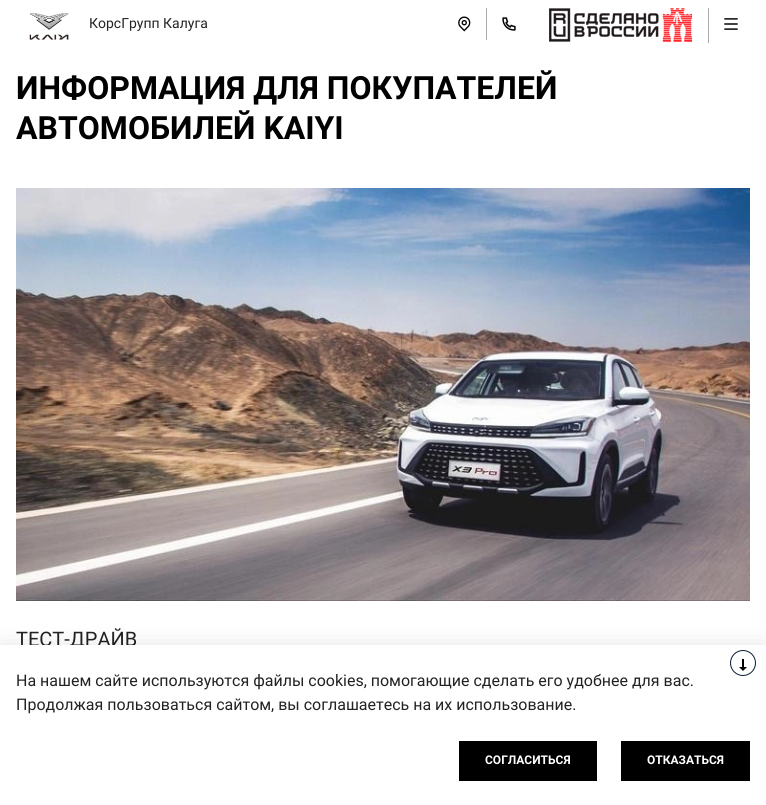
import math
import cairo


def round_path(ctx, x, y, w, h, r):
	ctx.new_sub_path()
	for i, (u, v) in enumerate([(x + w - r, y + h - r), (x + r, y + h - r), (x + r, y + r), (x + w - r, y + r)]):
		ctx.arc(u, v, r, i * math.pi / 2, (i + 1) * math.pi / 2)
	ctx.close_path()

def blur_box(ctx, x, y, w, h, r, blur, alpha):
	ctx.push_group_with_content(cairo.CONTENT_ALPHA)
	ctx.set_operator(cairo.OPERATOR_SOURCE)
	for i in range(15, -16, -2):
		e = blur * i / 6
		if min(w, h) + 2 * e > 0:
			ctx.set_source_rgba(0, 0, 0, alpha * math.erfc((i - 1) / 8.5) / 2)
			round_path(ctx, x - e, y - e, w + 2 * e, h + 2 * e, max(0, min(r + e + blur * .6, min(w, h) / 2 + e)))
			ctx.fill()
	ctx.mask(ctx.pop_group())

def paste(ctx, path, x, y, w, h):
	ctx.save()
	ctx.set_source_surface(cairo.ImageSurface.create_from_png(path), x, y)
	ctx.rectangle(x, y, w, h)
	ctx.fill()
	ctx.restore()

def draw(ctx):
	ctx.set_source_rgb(1, 1, 1)
	ctx.paint()
	paste(ctx, 'media/1.png', 29, 13, 40, 27)
	ctx.select_font_face('Roboto')
	ctx.set_font_size(14)
	ctx.set_source_rgb(0.133, 0.133, 0.133)
	ctx.move_to(89, 28)
	ctx.show_text('КорсГрупп Калуга')
	ctx.set_source_rgb(0.667, 0.667, 0.667)
	ctx.rectangle(486, 8, 1, 32)
	ctx.fill()
	paste(ctx, 'media/2.png', 458, 16, 13, 16)
	paste(ctx, 'media/3.png', 502, 17, 14, 14)
	paste(ctx, 'media/4.png', 549, 8, 143, 34)
	ctx.rectangle(708, 8, 1, 35)
	ctx.fill()
	paste(ctx, 'media/5.png', 724, 18, 14, 12)
	ctx.select_font_face('Roboto', cairo.FONT_SLANT_NORMAL, cairo.FONT_WEIGHT_BOLD)
	ctx.set_font_size(32)
	ctx.set_source_rgb(0, 0, 0)
	ctx.move_to(16, 99)
	ctx.show_text('ИНФОРМАЦИЯ ДЛЯ ПОКУПАТЕЛЕЙ')
	ctx.move_to(16, 139)
	ctx.show_text('АВТОМОБИЛЕЙ KAIYI')
	paste(ctx, 'media/6.png', 16, 188, 734, 413)
	ctx.select_font_face('Roboto')
	ctx.set_font_size(20)
	ctx.set_source_rgb(0.133, 0.133, 0.133)
	ctx.move_to(16, 646)
	ctx.show_text('ТЕСТ-ДРАЙВ')
	ctx.set_source_rgb(0, 0, 0)
	blur_box(ctx, 0, 649, 766, 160, 0, 12, 0.14)
	ctx.set_source_rgb(1, 1, 1)
	ctx.rectangle(0, 645, 766, 160)
	ctx.fill()
	ctx.arc(743, 663, 12.5, 0, 2 * math.pi)
	ctx.set_source_rgb(0.031, 0.11, 0.204)
	ctx.set_line_width(1)
	ctx.stroke()
	paste(ctx, 'media/7.png', 739, 659, 8, 12)
	ctx.set_font_size(16)
	ctx.set_source_rgb(0.133, 0.133, 0.133)
	ctx.move_to(16, 686)
	ctx.show_text('На нашем сайте используются файлы cookies, помогающие сделать его удобнее для вас.')
	ctx.move_to(16, 710)
	ctx.show_text('Продолжая пользоваться сайтом, вы соглашаетесь на их использование.')
	ctx.set_source_rgb(0, 0, 0)
	ctx.rectangle(459, 741, 138, 40)
	ctx.fill()
	ctx.select_font_face('Roboto', cairo.FONT_SLANT_NORMAL, cairo.FONT_WEIGHT_BOLD)
	ctx.set_font_size(12)
	ctx.set_source_rgb(1, 1, 1)
	ctx.move_to(485, 764)
	ctx.show_text('СОГЛАСИТЬСЯ')
	ctx.set_source_rgb(0, 0, 0)
	ctx.rectangle(621, 741, 129, 40)
	ctx.fill()
	ctx.set_source_rgb(1, 1, 1)
	ctx.move_to(647, 764)
	ctx.show_text('ОТКАЗАТЬСЯ')


surface = cairo.ImageSurface(cairo.FORMAT_RGB24, 766, 805)
ctx = cairo.Context(surface)
options = cairo.FontOptions()
options.set_hint_metrics(cairo.HINT_METRICS_OFF)
options.set_hint_style(cairo.HINT_STYLE_NONE)
ctx.set_font_options(options)
ctx.set_miter_limit(4)
draw(ctx)
surface.write_to_png('image.png')
